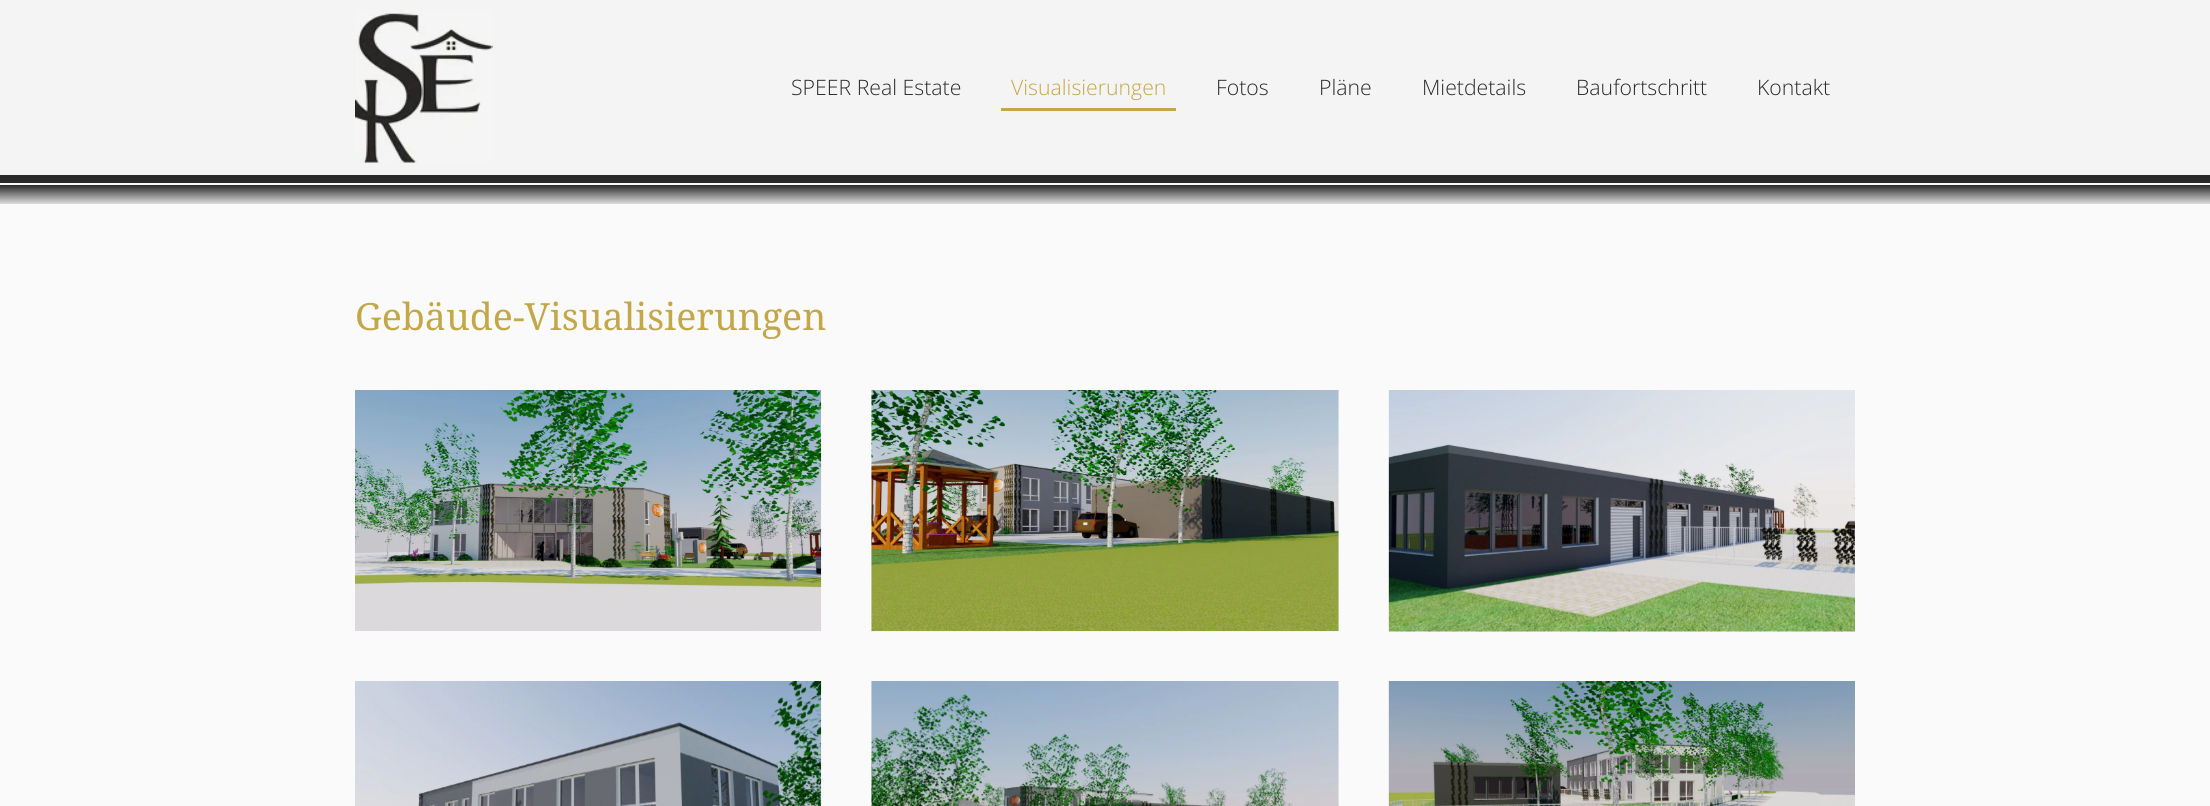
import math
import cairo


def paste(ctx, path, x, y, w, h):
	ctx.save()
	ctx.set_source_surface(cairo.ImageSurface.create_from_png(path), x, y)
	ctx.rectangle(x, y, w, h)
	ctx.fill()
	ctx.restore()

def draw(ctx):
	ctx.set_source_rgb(0.98, 0.98, 0.98)
	ctx.paint()
	ctx.set_source_rgb(0.957, 0.957, 0.957)
	ctx.rectangle(0, 0, 2210, 175)
	ctx.fill()
	ctx.set_source_rgb(0.165, 0.165, 0.165)
	ctx.rectangle(0, 175, 2210, 8)
	ctx.fill()
	paste(ctx, 'media/1.png', 355, 10, 138, 153)
	ctx.select_font_face('Open Sans Light')
	ctx.set_font_size(21.25)
	ctx.move_to(791, 95)
	ctx.show_text('SPEER Real Estate')
	ctx.set_source_rgb(0.769, 0.655, 0.278)
	ctx.move_to(1011, 95)
	ctx.show_text('Visualisierungen')
	ctx.rectangle(1001, 108, 175, 3)
	ctx.fill()
	ctx.set_source_rgb(0.165, 0.165, 0.165)
	for x, y, s in [
		(1216, 95, 'Fotos'),
		(1319, 95, 'Pläne'),
		(1422, 95, 'Mietdetails'),
		(1576, 95, 'Baufortschritt'),
		(1757, 95, 'Kontakt'),
	]:
		ctx.move_to(x, y)
		ctx.show_text(s)
	gradient = cairo.LinearGradient(1105, 185, 1105, 204)
	gradient.add_color_stop_rgba(0, 0.165, 0.165, 0.165, 1)
	gradient.add_color_stop_rgba(1, 0.867, 0.867, 0.867, 1)
	ctx.set_source(gradient)
	ctx.rectangle(0, 185, 2210, 19)
	ctx.fill()
	ctx.select_font_face('Noto Serif')
	ctx.set_font_size(37.5)
	ctx.set_source_rgb(0.769, 0.655, 0.278)
	ctx.move_to(355, 330)
	ctx.show_text('Gebäude-Visualisierungen')
	paste(ctx, 'media/2.png', 355, 390, 467, 241)
	paste(ctx, 'media/3.png', 871, 390, 468, 242)
	paste(ctx, 'media/4.png', 1388, 390, 467, 242)
	paste(ctx, 'media/5.png', 355, 681, 467, 125)
	paste(ctx, 'media/6.png', 871, 681, 468, 125)
	paste(ctx, 'media/7.png', 1388, 681, 467, 125)


surface = cairo.ImageSurface(cairo.FORMAT_RGB24, 2210, 806)
ctx = cairo.Context(surface)
options = cairo.FontOptions()
options.set_hint_metrics(cairo.HINT_METRICS_OFF)
options.set_hint_style(cairo.HINT_STYLE_NONE)
ctx.set_font_options(options)
ctx.set_miter_limit(4)
draw(ctx)
surface.write_to_png('image.png')
